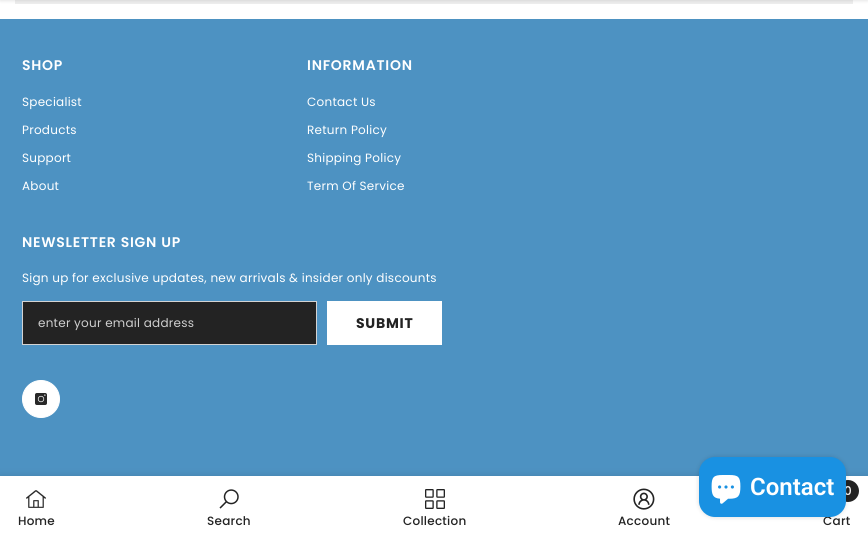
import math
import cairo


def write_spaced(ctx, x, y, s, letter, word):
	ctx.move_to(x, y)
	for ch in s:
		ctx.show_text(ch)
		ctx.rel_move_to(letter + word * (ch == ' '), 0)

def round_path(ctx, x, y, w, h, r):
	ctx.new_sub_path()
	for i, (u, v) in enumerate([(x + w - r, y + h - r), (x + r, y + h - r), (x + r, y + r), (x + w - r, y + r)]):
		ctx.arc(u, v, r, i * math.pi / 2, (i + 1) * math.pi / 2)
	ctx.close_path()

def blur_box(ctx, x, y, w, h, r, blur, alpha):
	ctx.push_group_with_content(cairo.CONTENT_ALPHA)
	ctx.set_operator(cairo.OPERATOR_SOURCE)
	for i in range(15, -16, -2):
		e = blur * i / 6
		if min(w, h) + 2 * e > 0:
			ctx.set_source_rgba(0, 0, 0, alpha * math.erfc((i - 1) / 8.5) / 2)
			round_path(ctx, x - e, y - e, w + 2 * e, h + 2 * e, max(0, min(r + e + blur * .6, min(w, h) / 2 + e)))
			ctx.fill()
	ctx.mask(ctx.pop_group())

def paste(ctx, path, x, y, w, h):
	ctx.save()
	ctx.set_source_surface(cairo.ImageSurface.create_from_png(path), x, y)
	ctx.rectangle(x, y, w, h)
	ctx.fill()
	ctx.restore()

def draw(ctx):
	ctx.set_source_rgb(1, 1, 1)
	ctx.paint()
	ctx.set_source_rgb(0.933, 0.933, 0.933)
	ctx.rectangle(15, 0, 838, 4)
	ctx.fill()
	ctx.set_source_rgb(0, 0, 0)
	blur_box(ctx, 0, -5, 868, 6, 0, 1.5, 0.1)
	ctx.set_source_rgb(0.302, 0.573, 0.761)
	ctx.rectangle(0, 19, 868, 457)
	ctx.fill()
	ctx.select_font_face('Poppins SemiBold')
	ctx.set_font_size(14)
	ctx.set_source_rgb(1, 1, 1)
	write_spaced(ctx, 22, 70, 'SHOP', 0.75, 0)
	ctx.select_font_face('Poppins')
	ctx.set_font_size(12)
	for x, y, s in [
		(22, 106, 'Specialist'),
		(22, 134, 'Products'),
		(22, 162, 'Support'),
		(22, 190, 'About'),
	]:
		write_spaced(ctx, x, y, s, 0.25, 0)
	ctx.select_font_face('Poppins SemiBold')
	ctx.set_font_size(14)
	write_spaced(ctx, 307, 70, 'INFORMATION', 0.75, 0)
	ctx.select_font_face('Poppins')
	ctx.set_font_size(12)
	for x, y, s in [
		(307, 106, 'Contact Us'),
		(307, 134, 'Return Policy'),
		(307, 162, 'Shipping Policy'),
		(307, 190, 'Term Of Service'),
	]:
		write_spaced(ctx, x, y, s, 0.25, 0)
	ctx.select_font_face('Poppins SemiBold')
	ctx.set_font_size(14)
	write_spaced(ctx, 22, 247, 'NEWSLETTER SIGN UP', 0.75, 0)
	ctx.select_font_face('Poppins')
	ctx.set_font_size(12)
	write_spaced(ctx, 22, 282, 'Sign up for exclusive updates, new arrivals & insider only discounts', 0.25, 0)
	ctx.set_source_rgb(0.137, 0.137, 0.137)
	ctx.rectangle(22.5, 301.5, 294, 43)
	ctx.fill_preserve()
	ctx.set_source_rgb(0.827, 0.827, 0.827)
	ctx.set_line_width(1)
	ctx.stroke()
	ctx.set_source_rgb(0.812, 0.812, 0.812)
	write_spaced(ctx, 38, 327, 'enter your email address', 0.25, 0)
	ctx.set_source_rgb(1, 1, 1)
	ctx.rectangle(327, 301, 115, 44)
	ctx.fill()
	ctx.select_font_face('Poppins', cairo.FONT_SLANT_NORMAL, cairo.FONT_WEIGHT_BOLD)
	ctx.set_font_size(14)
	ctx.set_source_rgb(0.137, 0.137, 0.137)
	write_spaced(ctx, 356, 328, 'SUBMIT', 0.75, 0)
	ctx.set_source_rgb(1, 1, 1)
	ctx.new_path()
	ctx.arc(41, 399, 18.5, 0, 2 * math.pi)
	ctx.fill_preserve()
	ctx.stroke()
	paste(ctx, 'media/1.png', 35, 393, 12, 12)
	ctx.set_source_rgb(0, 0, 0)
	blur_box(ctx, 0, 476, 868, 62, 0, 4.5, 0.12)
	ctx.set_source_rgb(1, 1, 1)
	ctx.rectangle(0, 476, 868, 62)
	ctx.fill()
	paste(ctx, 'media/2.png', 26, 490, 20, 18)
	ctx.select_font_face('Poppins Medium')
	ctx.set_font_size(12)
	ctx.set_source_rgb(0.137, 0.137, 0.137)
	write_spaced(ctx, 18, 525, 'Home', 0.25, 0)
	paste(ctx, 'media/3.png', 219, 489, 20, 20)
	write_spaced(ctx, 207, 525, 'Search', 0.25, 0)
	paste(ctx, 'media/4.png', 425, 489, 20, 20)
	write_spaced(ctx, 403, 525, 'Collection', 0.25, 0)
	paste(ctx, 'media/5.png', 633, 488, 22, 22)
	write_spaced(ctx, 618, 525, 'Account', 0.25, 0)
	ctx.new_path()
	ctx.arc(848, 491, 11, 0, 2 * math.pi)
	ctx.fill()
	ctx.set_source_rgb(1, 1, 1)
	ctx.move_to(844, 495)
	ctx.show_text('0')
	paste(ctx, 'media/6.png', 843, 508, 1, 1)
	ctx.set_source_rgb(0.137, 0.137, 0.137)
	write_spaced(ctx, 823, 525, 'Cart', 0.25, 0)
	ctx.set_source_rgb(0, 0, 0)
	blur_box(ctx, 699, 457, 147, 60, 16, 2.5, 0.15)
	ctx.set_source_rgb(0.098, 0.569, 0.886)
	round_path(ctx, 699, 457, 147, 60, 16)
	ctx.fill()
	paste(ctx, 'media/7.png', 711, 475, 30, 29)
	ctx.select_font_face('Roboto SemiBold')
	ctx.set_font_size(24)
	ctx.set_source_rgb(1, 1, 1)
	ctx.move_to(750, 495)
	ctx.show_text('Contact')


surface = cairo.ImageSurface(cairo.FORMAT_RGB24, 868, 538)
ctx = cairo.Context(surface)
options = cairo.FontOptions()
options.set_hint_metrics(cairo.HINT_METRICS_OFF)
options.set_hint_style(cairo.HINT_STYLE_NONE)
ctx.set_font_options(options)
ctx.set_miter_limit(4)
draw(ctx)
surface.write_to_png('image.png')
